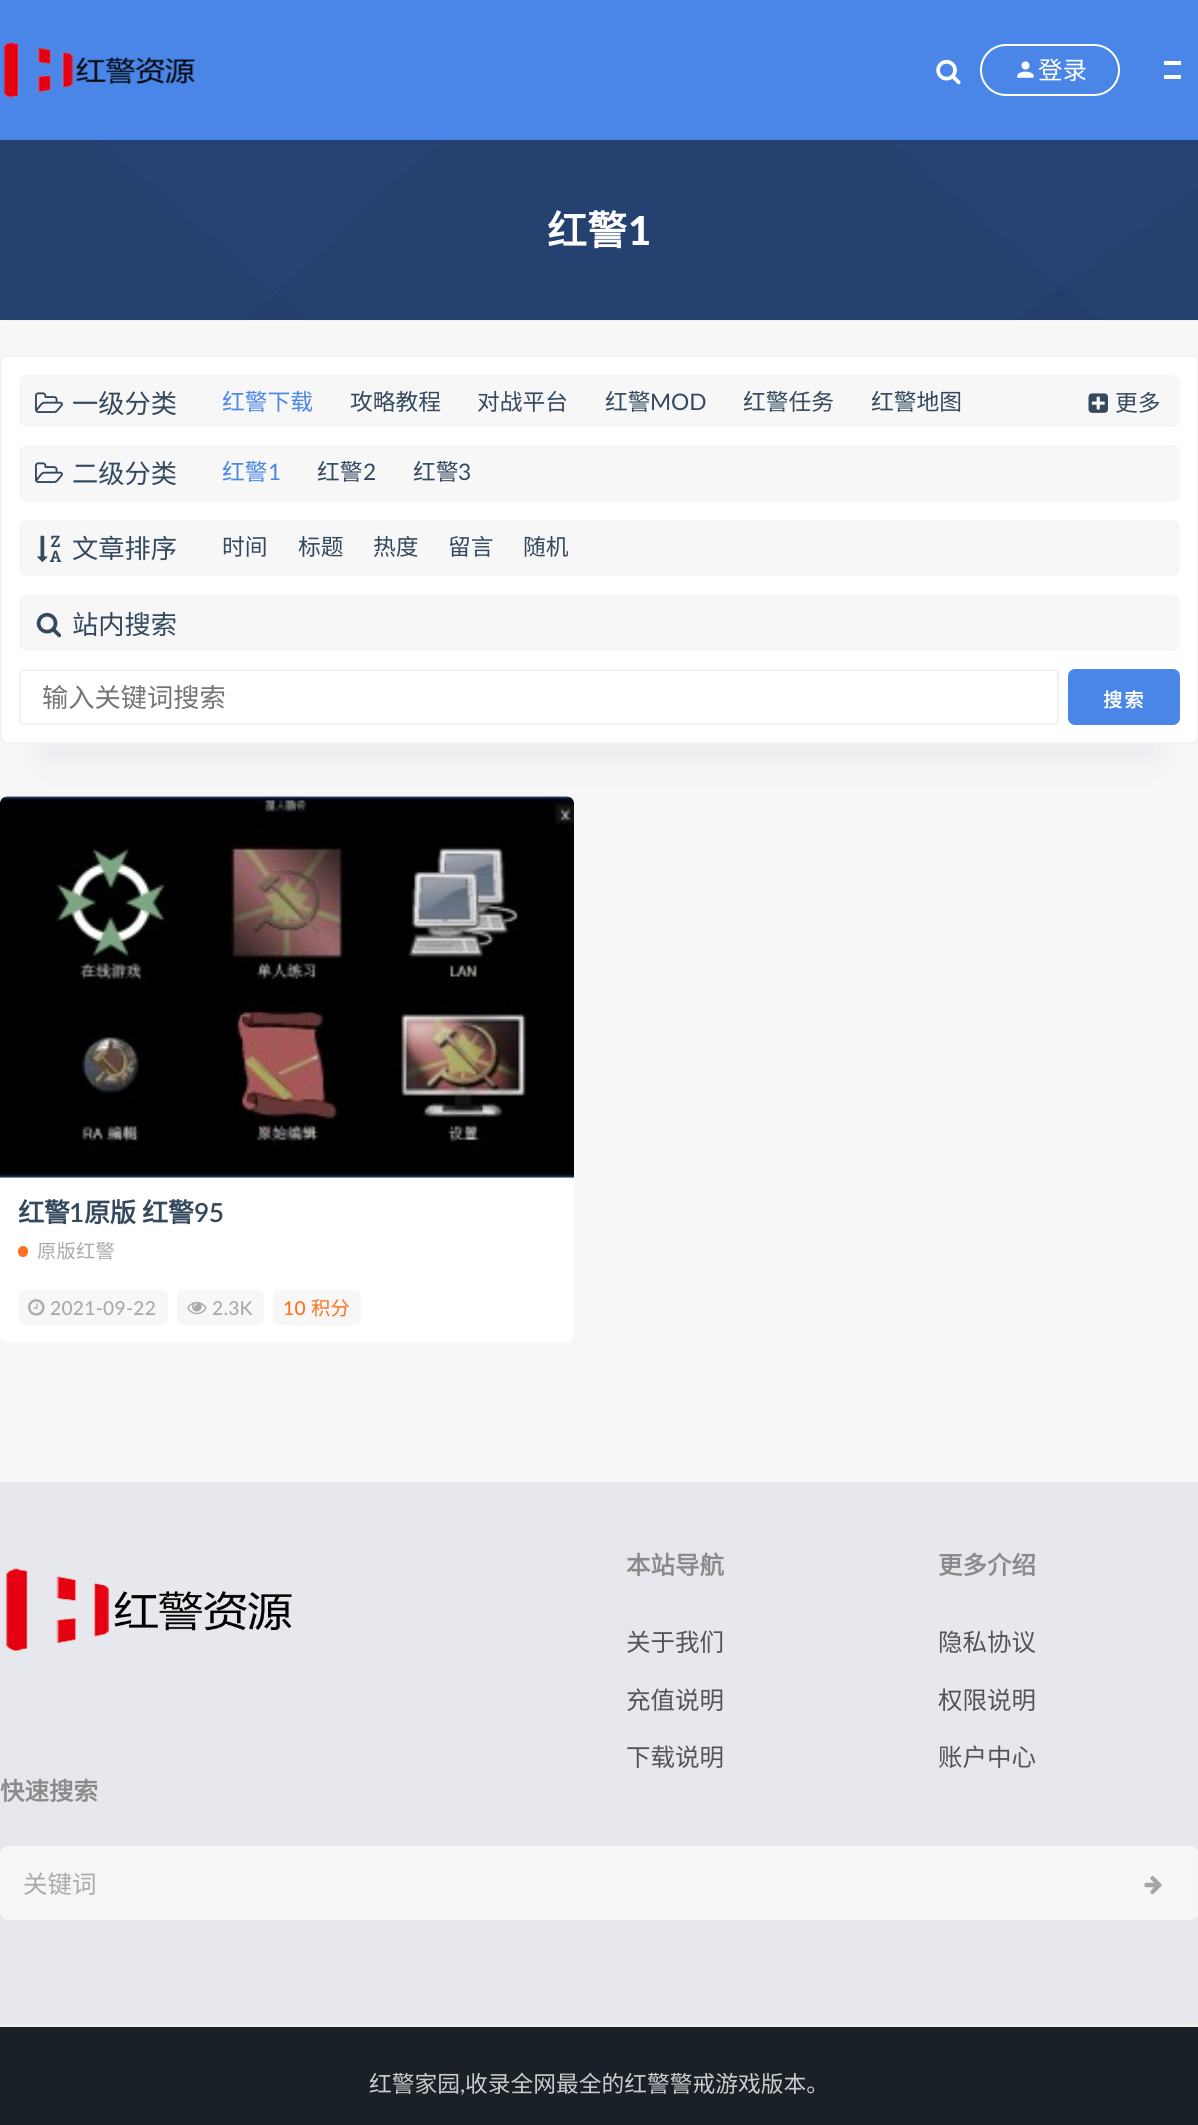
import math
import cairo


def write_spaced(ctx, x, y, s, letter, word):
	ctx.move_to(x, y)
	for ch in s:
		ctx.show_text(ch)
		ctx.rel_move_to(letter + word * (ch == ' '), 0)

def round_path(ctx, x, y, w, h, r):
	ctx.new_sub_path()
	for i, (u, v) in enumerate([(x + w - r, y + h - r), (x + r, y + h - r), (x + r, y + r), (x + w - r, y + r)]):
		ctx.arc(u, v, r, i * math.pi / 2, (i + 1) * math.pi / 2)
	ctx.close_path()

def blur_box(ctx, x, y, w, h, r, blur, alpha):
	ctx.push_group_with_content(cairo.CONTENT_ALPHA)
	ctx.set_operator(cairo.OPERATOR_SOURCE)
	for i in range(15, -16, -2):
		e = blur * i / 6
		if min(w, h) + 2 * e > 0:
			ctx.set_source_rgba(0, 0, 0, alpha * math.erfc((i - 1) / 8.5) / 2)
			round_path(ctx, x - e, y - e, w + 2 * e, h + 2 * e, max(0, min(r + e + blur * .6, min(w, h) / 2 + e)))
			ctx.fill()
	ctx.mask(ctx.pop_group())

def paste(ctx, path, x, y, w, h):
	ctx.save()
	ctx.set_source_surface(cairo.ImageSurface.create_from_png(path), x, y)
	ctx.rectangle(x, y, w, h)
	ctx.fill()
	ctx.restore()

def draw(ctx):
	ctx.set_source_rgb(0.965, 0.965, 0.965)
	ctx.paint()
	ctx.set_source_rgb(0.29, 0.525, 0.91)
	ctx.rectangle(0, 0, 1198, 140)
	ctx.fill()
	paste(ctx, 'media/1.png', 4, 41, 191, 57)
	paste(ctx, 'media/2.png', 936, 59, 25, 26)
	round_path(ctx, 981, 45, 138, 50, 25)
	ctx.set_source_rgb(1, 1, 1)
	ctx.stroke()
	paste(ctx, 'media/3.png', 1017, 61, 17, 17)
	ctx.select_font_face('Noto Sans CJK SC')
	ctx.set_font_size(24.5)
	ctx.move_to(1038, 79)
	ctx.show_text('登录')
	ctx.rectangle(1164, 61, 17, 4)
	ctx.rectangle(1164, 75, 17, 4)
	ctx.fill()
	ctx.set_source_rgb(0.145, 0.263, 0.455)
	ctx.rectangle(0, 140, 1198, 180)
	ctx.fill()
	paste(ctx, 'media/4.png', 0, 140, 1198, 181)
	ctx.select_font_face('Noto Sans CJK SC', cairo.FONT_SLANT_NORMAL, cairo.FONT_WEIGHT_BOLD)
	ctx.set_font_size(40)
	ctx.set_source_rgb(1, 1, 1)
	ctx.move_to(547, 245)
	ctx.show_text('红警')
	ctx.select_font_face('Lato Black')
	ctx.move_to(628, 245)
	ctx.show_text('1')
	round_path(ctx, 0, 796, 574, 546, 7)
	ctx.fill()
	paste(ctx, 'media/10.png', 0, 796, 574, 382)
	ctx.set_source_rgb(0, 0.141, 0.392)
	blur_box(ctx, 42, 457, 1115, 304, 0, 17.5, 0.06)
	ctx.set_source_rgb(1, 1, 1)
	round_path(ctx, 1, 356, 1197, 387, 6)
	ctx.fill_preserve()
	ctx.set_source_rgb(0.953, 0.953, 0.953)
	ctx.stroke()
	ctx.set_source_rgb(0.965, 0.965, 0.965)
	round_path(ctx, 19, 375, 1161, 52, 7)
	ctx.fill()
	paste(ctx, 'media/5.png', 35, 392, 28, 21)
	ctx.select_font_face('Noto Sans CJK SC')
	ctx.set_font_size(26.25)
	ctx.set_source_rgb(0.204, 0.286, 0.369)
	ctx.move_to(72, 413)
	ctx.show_text('一级分类')
	ctx.set_font_size(22.75)
	ctx.set_source_rgb(0.29, 0.525, 0.91)
	ctx.move_to(222, 410)
	ctx.show_text('红警下载')
	ctx.set_source_rgb(0.204, 0.286, 0.369)
	for x, y, s in [
		(350, 410, '攻略教程'),
		(477, 410, '对战平台'),
		(605, 410, '红警'),
	]:
		ctx.move_to(x, y)
		ctx.show_text(s)
	ctx.select_font_face('Lato')
	ctx.move_to(650, 410)
	ctx.show_text('MOD')
	ctx.select_font_face('Noto Sans CJK SC')
	ctx.move_to(743, 410)
	ctx.show_text('红警任务')
	ctx.move_to(871, 410)
	ctx.show_text('红警地图')
	paste(ctx, 'media/6.png', 1088, 393, 20, 20)
	ctx.move_to(1115, 411)
	ctx.show_text('更多')
	ctx.set_source_rgb(0.965, 0.965, 0.965)
	round_path(ctx, 19, 445, 1161, 57, 7)
	ctx.fill()
	paste(ctx, 'media/7.png', 35, 462, 28, 21)
	ctx.set_font_size(26.25)
	ctx.set_source_rgb(0.204, 0.286, 0.369)
	ctx.move_to(72, 483)
	ctx.show_text('二级分类')
	ctx.set_font_size(22.75)
	ctx.set_source_rgb(0.29, 0.525, 0.91)
	ctx.move_to(222, 480)
	ctx.show_text('红警')
	ctx.select_font_face('Lato')
	ctx.move_to(268, 480)
	ctx.show_text('1')
	ctx.select_font_face('Noto Sans CJK SC')
	ctx.set_source_rgb(0.204, 0.286, 0.369)
	ctx.move_to(317, 480)
	ctx.show_text('红警')
	ctx.select_font_face('Lato')
	ctx.move_to(363, 480)
	ctx.show_text('2')
	ctx.select_font_face('Noto Sans CJK SC')
	ctx.move_to(413, 480)
	ctx.show_text('红警')
	ctx.select_font_face('Lato')
	ctx.move_to(458, 480)
	ctx.show_text('3')
	ctx.set_source_rgb(0.965, 0.965, 0.965)
	round_path(ctx, 19, 520, 1161, 56, 7)
	ctx.fill()
	paste(ctx, 'media/8.png', 37, 535, 25, 27)
	ctx.select_font_face('Noto Sans CJK SC')
	ctx.set_font_size(26.25)
	ctx.set_source_rgb(0.204, 0.286, 0.369)
	ctx.move_to(72, 558)
	ctx.show_text('文章排序')
	ctx.set_font_size(22.75)
	for x, y, s in [
		(222, 555, '时间'),
		(298, 555, '标题'),
		(373, 555, '热度'),
		(448, 555, '留言'),
		(523, 555, '随机'),
	]:
		ctx.move_to(x, y)
		ctx.show_text(s)
	ctx.set_source_rgb(0.965, 0.965, 0.965)
	round_path(ctx, 19, 595, 1161, 56, 7)
	ctx.fill()
	paste(ctx, 'media/9.png', 36, 612, 26, 26)
	ctx.set_font_size(26.25)
	ctx.set_source_rgb(0.204, 0.286, 0.369)
	ctx.move_to(72, 634)
	ctx.show_text('站内搜索')
	round_path(ctx, 20, 670, 1038, 54, 4)
	ctx.set_source_rgb(0.945, 0.945, 0.945)
	ctx.stroke()
	ctx.set_source_rgb(0.459, 0.459, 0.459)
	ctx.move_to(42, 707)
	ctx.show_text('输入关键词搜索')
	ctx.set_source_rgb(0.29, 0.525, 0.91)
	round_path(ctx, 1068, 669, 112, 56, 7)
	ctx.fill()
	ctx.select_font_face('Noto Sans CJK SC', cairo.FONT_SLANT_NORMAL, cairo.FONT_WEIGHT_BOLD)
	ctx.set_font_size(19.25)
	ctx.set_source_rgb(1, 1, 1)
	write_spaced(ctx, 1103, 707, '搜索', 2, 0)
	ctx.set_font_size(26.25)
	ctx.set_source_rgb(0.204, 0.286, 0.369)
	write_spaced(ctx, 18, 1222, '红警', -0.5, 0)
	ctx.select_font_face('Lato SemiBold')
	write_spaced(ctx, 69, 1222, '1', -0.5, 0)
	ctx.select_font_face('Noto Sans CJK SC', cairo.FONT_SLANT_NORMAL, cairo.FONT_WEIGHT_BOLD)
	write_spaced(ctx, 84, 1222, '原版 红警', -0.5, 1)
	ctx.select_font_face('Lato SemiBold')
	write_spaced(ctx, 194, 1222, '95', -0.5, 0)
	ctx.set_source_rgb(0.992, 0.447, 0.122)
	round_path(ctx, 18, 1246, 10, 11, 5)
	ctx.fill()
	ctx.select_font_face('Noto Sans CJK SC')
	ctx.set_font_size(19.25)
	ctx.set_source_rgb(0.667, 0.667, 0.667)
	write_spaced(ctx, 37, 1258, '原版红警', 0.25, 0)
	ctx.set_source_rgb(0.965, 0.965, 0.965)
	round_path(ctx, 18, 1290, 150, 35, 7)
	ctx.fill()
	paste(ctx, 'media/11.png', 28, 1299, 17, 17)
	ctx.select_font_face('Lato Medium')
	ctx.set_source_rgb(0.667, 0.667, 0.667)
	write_spaced(ctx, 50, 1315, '2021-09-22', 0.25, 0)
	ctx.set_source_rgb(0.965, 0.965, 0.965)
	round_path(ctx, 177, 1290, 87, 35, 7)
	ctx.fill()
	paste(ctx, 'media/12.png', 187, 1301, 20, 14)
	ctx.set_source_rgb(0.667, 0.667, 0.667)
	write_spaced(ctx, 212, 1315, '2.3K', 0.25, 0)
	ctx.set_source_rgb(0.965, 0.965, 0.965)
	round_path(ctx, 273, 1290, 88, 35, 7)
	ctx.fill()
	ctx.set_source_rgb(0.992, 0.447, 0.122)
	write_spaced(ctx, 283, 1315, '10', 0.25, 0)
	ctx.select_font_face('Noto Sans CJK SC')
	write_spaced(ctx, 311, 1315, '积分', 0.25, 0)
	ctx.set_source_rgb(0.906, 0.91, 0.929)
	ctx.rectangle(0, 1482, 1198, 543)
	ctx.fill()
	ctx.set_source_rgb(0.933, 0.933, 0.933)
	ctx.rectangle(0, 2025, 1198, 2)
	ctx.fill()
	paste(ctx, 'media/13.png', 6, 1568, 286, 83)
	ctx.select_font_face('Noto Sans CJK SC', cairo.FONT_SLANT_NORMAL, cairo.FONT_WEIGHT_BOLD)
	ctx.set_font_size(24.5)
	ctx.set_source_rgb(0.541, 0.541, 0.541)
	ctx.move_to(626, 1574)
	ctx.show_text('本站导航')
	ctx.select_font_face('Noto Sans CJK SC')
	ctx.set_source_rgb(0.333, 0.333, 0.333)
	for x, y, s in [
		(626, 1651, '关于我们'),
		(626, 1709, '充值说明'),
		(626, 1766, '下载说明'),
	]:
		ctx.move_to(x, y)
		ctx.show_text(s)
	ctx.select_font_face('Noto Sans CJK SC', cairo.FONT_SLANT_NORMAL, cairo.FONT_WEIGHT_BOLD)
	ctx.set_source_rgb(0.541, 0.541, 0.541)
	ctx.move_to(938, 1574)
	ctx.show_text('更多介绍')
	ctx.select_font_face('Noto Sans CJK SC')
	ctx.set_source_rgb(0.333, 0.333, 0.333)
	for x, y, s in [
		(938, 1651, '隐私协议'),
		(938, 1709, '权限说明'),
		(938, 1766, '账户中心'),
	]:
		ctx.move_to(x, y)
		ctx.show_text(s)
	ctx.select_font_face('Noto Sans CJK SC', cairo.FONT_SLANT_NORMAL, cairo.FONT_WEIGHT_BOLD)
	ctx.set_source_rgb(0.541, 0.541, 0.541)
	ctx.move_to(0, 1800)
	ctx.show_text('快速搜索')
	ctx.set_source_rgb(0.961, 0.961, 0.961)
	round_path(ctx, 1, 1847, 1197, 72, 8)
	ctx.fill_preserve()
	ctx.set_source_rgb(0.965, 0.965, 0.965)
	ctx.stroke()
	ctx.select_font_face('Noto Sans CJK SC')
	ctx.set_source_rgb(0.667, 0.667, 0.667)
	ctx.move_to(23, 1893)
	ctx.show_text('关键词')
	paste(ctx, 'media/14.png', 1144, 1875, 18, 20)
	ctx.set_source_rgb(0.098, 0.125, 0.153)
	ctx.rectangle(0, 2027, 1198, 98)
	ctx.fill()
	ctx.set_font_size(22.75)
	ctx.set_source_rgb(0.8, 0.8, 0.8)
	ctx.move_to(369, 2092)
	ctx.show_text('红警家园 收录全网最全的红警警戒游戏版本。')
	ctx.select_font_face('Lato')
	ctx.move_to(460, 2092)
	ctx.show_text(',')


surface = cairo.ImageSurface(cairo.FORMAT_RGB24, 1198, 2125)
ctx = cairo.Context(surface)
options = cairo.FontOptions()
options.set_hint_metrics(cairo.HINT_METRICS_OFF)
options.set_hint_style(cairo.HINT_STYLE_NONE)
ctx.set_font_options(options)
ctx.set_miter_limit(4)
draw(ctx)
surface.write_to_png('image.png')
